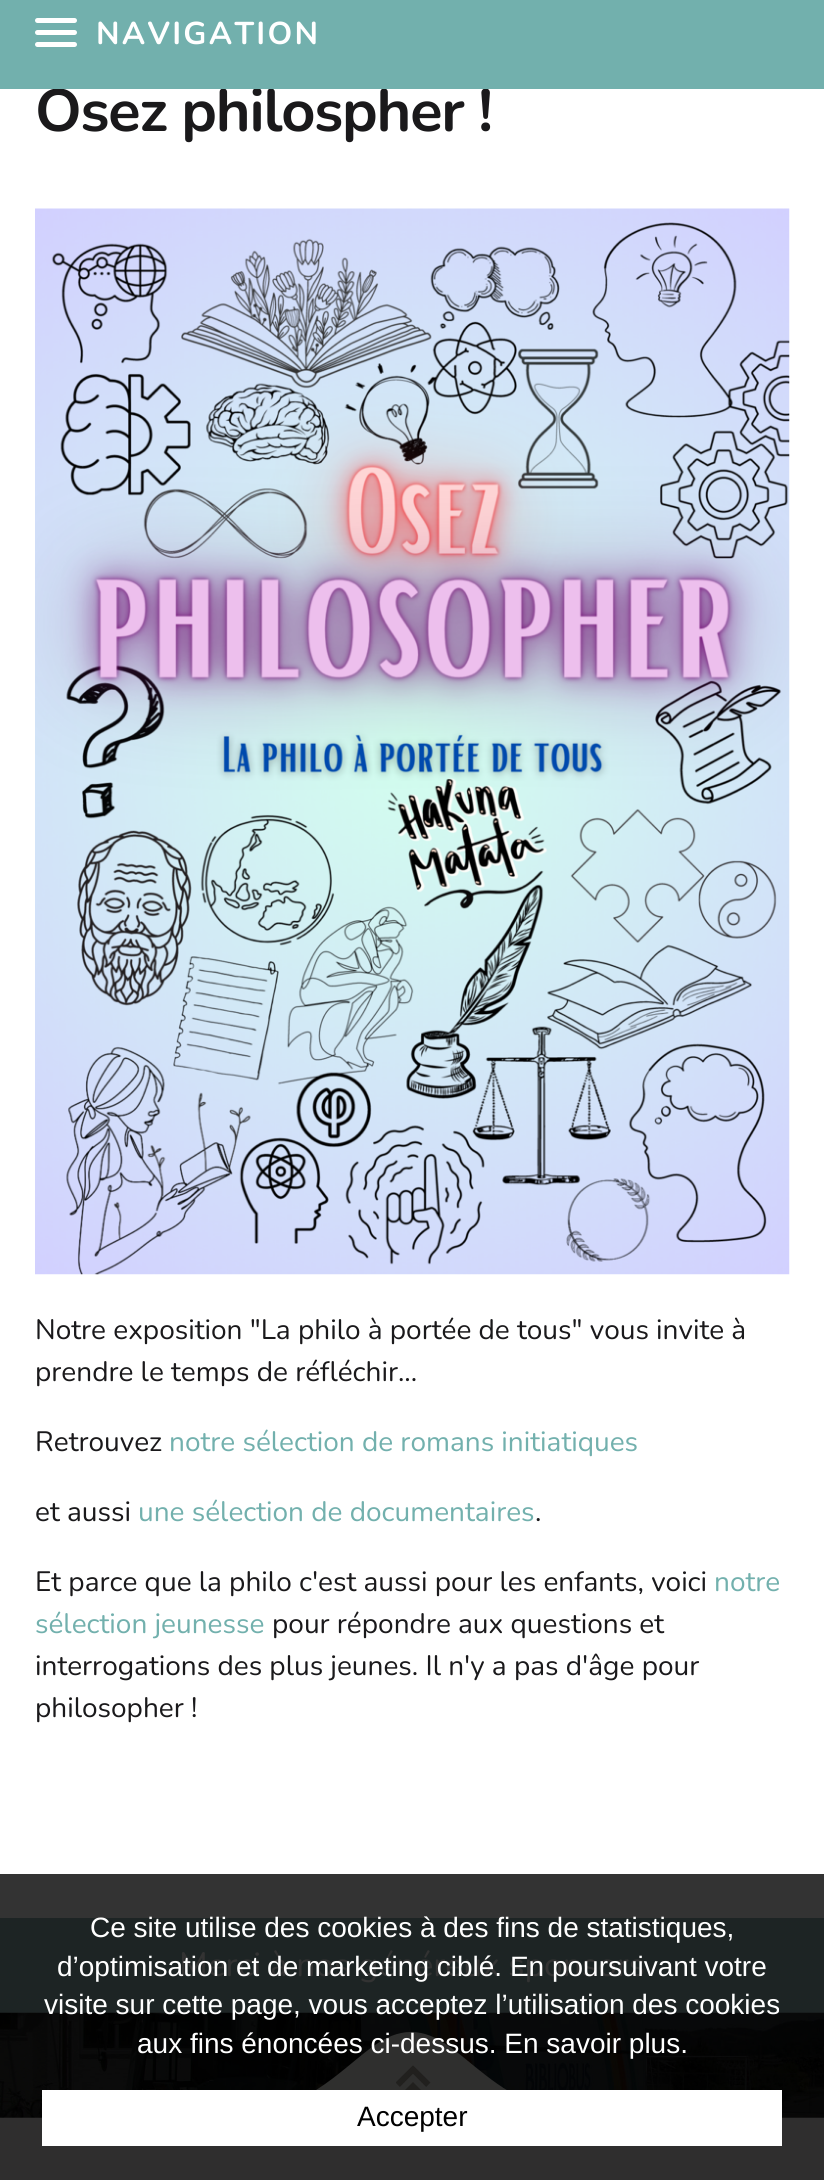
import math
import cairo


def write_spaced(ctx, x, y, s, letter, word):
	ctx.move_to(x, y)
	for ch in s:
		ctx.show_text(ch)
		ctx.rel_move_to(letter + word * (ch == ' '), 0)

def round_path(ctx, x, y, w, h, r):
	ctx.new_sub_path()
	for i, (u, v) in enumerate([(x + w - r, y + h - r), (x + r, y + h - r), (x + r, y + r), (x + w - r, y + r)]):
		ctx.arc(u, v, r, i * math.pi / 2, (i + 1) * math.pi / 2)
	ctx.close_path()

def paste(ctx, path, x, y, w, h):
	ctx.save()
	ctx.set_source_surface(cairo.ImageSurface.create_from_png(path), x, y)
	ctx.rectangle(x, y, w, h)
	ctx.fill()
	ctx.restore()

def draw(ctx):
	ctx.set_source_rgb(1, 1, 1)
	ctx.paint()
	ctx.set_source_rgb(0.2, 0.2, 0.2)
	ctx.rectangle(0, 1874, 824, 244)
	ctx.fill()
	ctx.select_font_face('Nunito', cairo.FONT_SLANT_NORMAL, cairo.FONT_WEIGHT_BOLD)
	ctx.set_font_size(59.5)
	ctx.set_source_rgb(0.102, 0.098, 0.106)
	write_spaced(ctx, 35, 131, 'Osez philospher !', -1.2, 0)
	ctx.set_source_rgb(0.447, 0.69, 0.678)
	ctx.rectangle(0, 0, 824, 89)
	ctx.fill()
	ctx.set_source_rgb(1, 1, 1)
	round_path(ctx, 35, 30, 42, 5, 2.5)
	ctx.fill()
	round_path(ctx, 35, 18, 42, 5, 2.5)
	ctx.fill()
	round_path(ctx, 35, 42, 42, 5, 2.5)
	ctx.fill()
	ctx.set_font_size(31.5)
	write_spaced(ctx, 96, 44, 'NAVIGATION', 2.25, 0)
	paste(ctx, 'media/1.png', 35, 208, 755, 1067)
	ctx.select_font_face('Nunito')
	ctx.set_font_size(28)
	ctx.set_source_rgb(0.102, 0.098, 0.106)
	for x, y, s in [
		(35, 1339, 'Notre exposition "La philo à portée de tous" vous invite à'),
		(35, 1381, 'prendre le temps de réfléchir...'),
		(35, 1451, 'Retrouvez'),
	]:
		ctx.move_to(x, y)
		ctx.show_text(s)
	ctx.set_source_rgb(0.447, 0.69, 0.678)
	ctx.move_to(169, 1451)
	ctx.show_text('notre sélection de romans initiatiques')
	ctx.set_source_rgb(0.102, 0.098, 0.106)
	ctx.move_to(35, 1521)
	ctx.show_text('et aussi')
	ctx.set_source_rgb(0.447, 0.69, 0.678)
	ctx.move_to(138, 1521)
	ctx.show_text('une sélection de documentaires')
	ctx.set_source_rgb(0.102, 0.098, 0.106)
	ctx.move_to(535, 1521)
	ctx.show_text('.')
	ctx.move_to(35, 1591)
	ctx.show_text('Et parce que la philo c\'est aussi pour les enfants, voici')
	ctx.set_source_rgb(0.447, 0.69, 0.678)
	ctx.move_to(714, 1591)
	ctx.show_text('notre')
	ctx.move_to(35, 1633)
	ctx.show_text('sélection jeunesse')
	ctx.set_source_rgb(0.102, 0.098, 0.106)
	for x, y, s in [
		(272, 1633, 'pour répondre aux questions et'),
		(35, 1675, 'interrogations des plus jeunes. Il n\'y a pas d\'âge pour'),
		(35, 1717, 'philosopher !'),
	]:
		ctx.move_to(x, y)
		ctx.show_text(s)
	ctx.set_source_rgb(0.114, 0.141, 0.141)
	ctx.rectangle(0, 1918, 824, 95)
	ctx.fill()
	ctx.set_font_size(33.6)
	ctx.set_source_rgb(0.2, 0.2, 0.2)
	ctx.move_to(179, 1976)
	ctx.show_text('Merci à nos généreux sponsors')
	paste(ctx, 'media/2.png', 0, 2012, 824, 106)
	ctx.set_source_rgb(0.184, 0.18, 0.18)
	ctx.rectangle(0, 2118, 824, 62)
	ctx.fill()
	ctx.set_source_rgb(0.184, 0.184, 0.18)
	ctx.set_fill_rule(cairo.FILL_RULE_EVEN_ODD)
	ctx.new_path()
	ctx.move_to(211, 2146)
	ctx.line_to(612, 2146)
	ctx.line_to(612, 2119)
	ctx.curve_to(490, 2119, 465, 2032, 411, 2032)
	ctx.curve_to(357, 2032, 333, 2119, 211, 2119)
	ctx.close_path()
	ctx.fill()
	paste(ctx, 'media/3.png', 396, 2065, 35, 25)
	ctx.select_font_face('Liberation Sans')
	ctx.set_font_size(28)
	ctx.set_source_rgb(1, 1, 1)
	for x, y, s in [
		(90, 1937, 'Ce site utilise des cookies à des fins de statistiques,'),
		(57, 1976, 'd’optimisation et de marketing ciblé. En poursuivant votre'),
		(44, 2014, 'visite sur cette page, vous acceptez l’utilisation des cookies'),
		(137, 2053, 'aux fins énoncées ci-dessus. En savoir plus.'),
	]:
		ctx.move_to(x, y)
		ctx.show_text(s)
	ctx.rectangle(42, 2090, 740, 56)
	ctx.fill()
	ctx.set_source_rgb(0, 0, 0)
	ctx.move_to(357, 2126)
	ctx.show_text('Accepter')


surface = cairo.ImageSurface(cairo.FORMAT_RGB24, 824, 2180)
ctx = cairo.Context(surface)
options = cairo.FontOptions()
options.set_hint_metrics(cairo.HINT_METRICS_OFF)
options.set_hint_style(cairo.HINT_STYLE_NONE)
ctx.set_font_options(options)
ctx.set_miter_limit(4)
draw(ctx)
surface.write_to_png('image.png')
